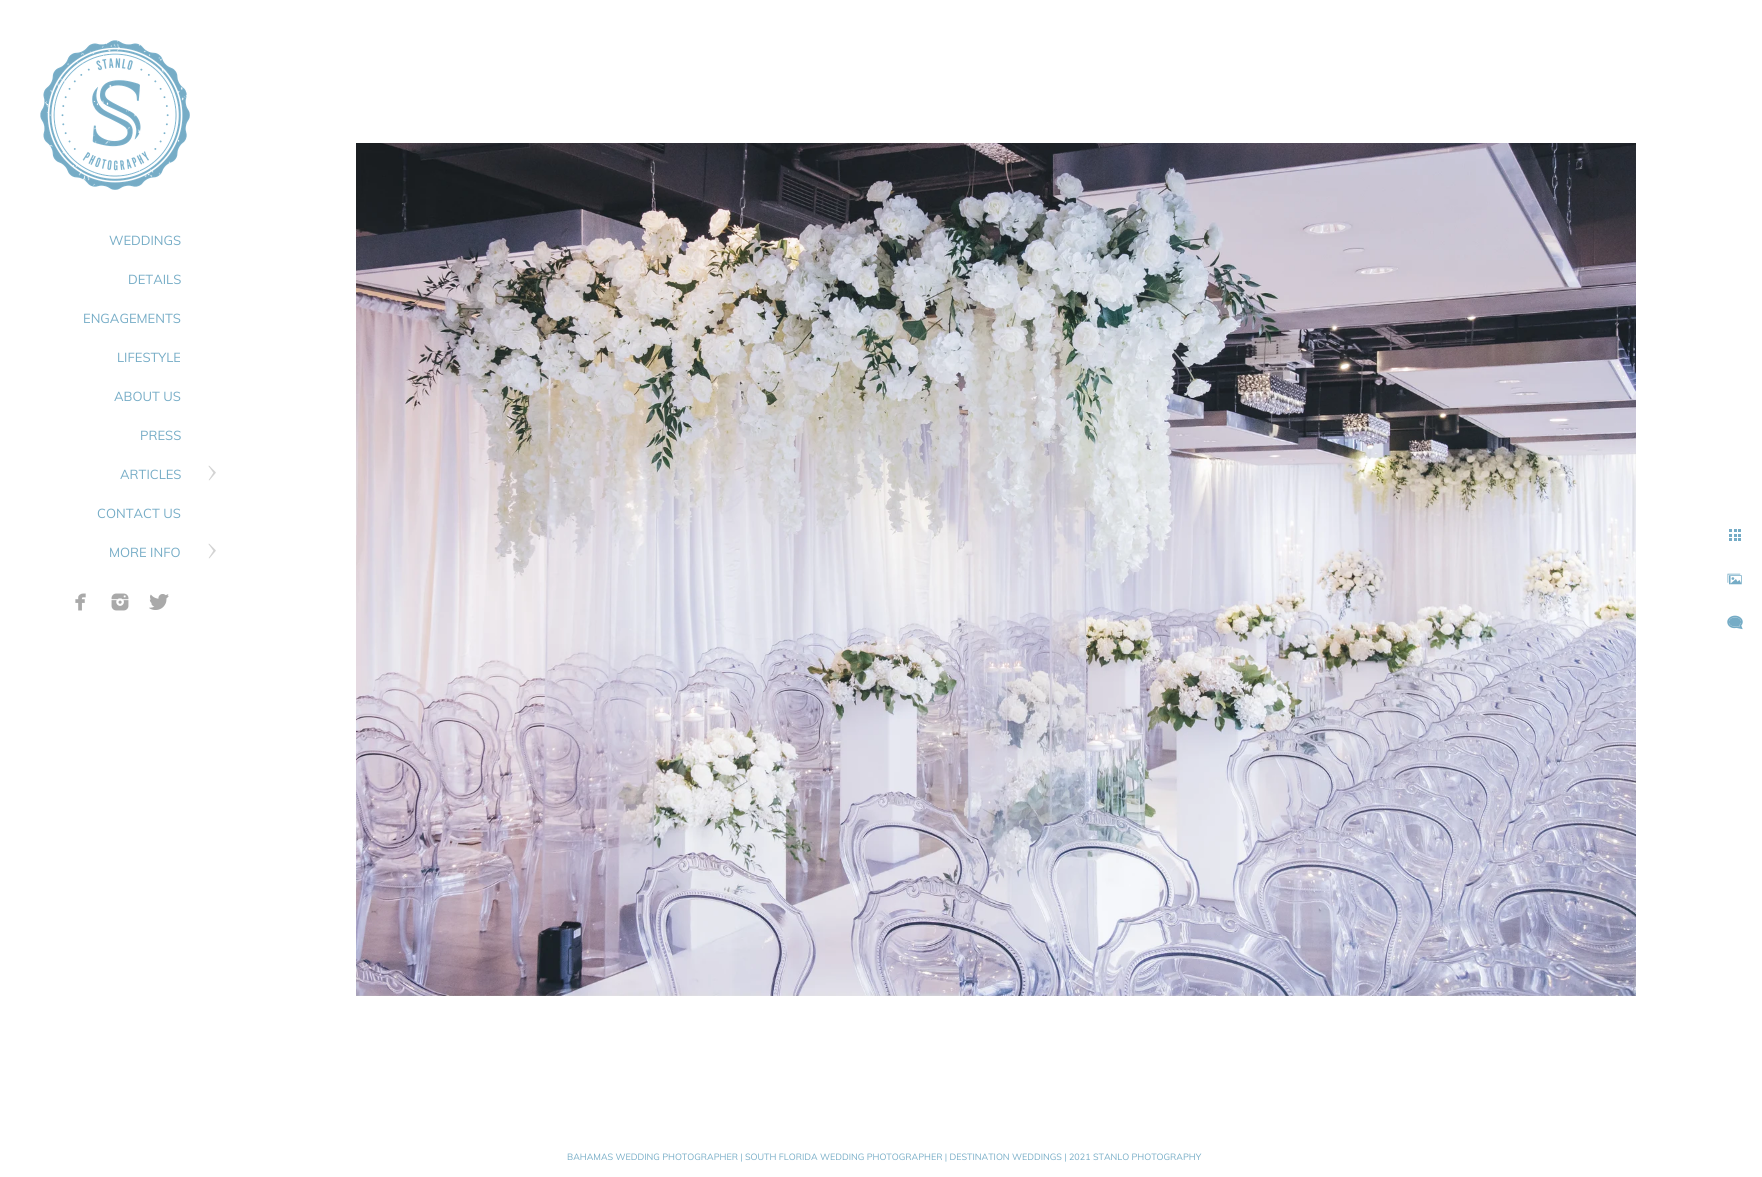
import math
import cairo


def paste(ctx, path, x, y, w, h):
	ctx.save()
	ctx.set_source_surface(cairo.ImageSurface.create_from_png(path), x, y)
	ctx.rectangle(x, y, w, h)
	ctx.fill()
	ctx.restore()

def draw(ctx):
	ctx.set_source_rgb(1, 1, 1)
	ctx.paint()
	paste(ctx, 'media/1.png', 40, 40, 150, 150)
	ctx.select_font_face('Muli')
	ctx.set_font_size(13)
	ctx.set_source_rgb(0.459, 0.675, 0.776)
	for x, y, s in [
		(109, 245, 'WEDDINGS'),
		(128, 284, 'DETAILS'),
		(83, 323, 'ENGAGEMENTS'),
		(117, 362, 'LIFESTYLE'),
		(114, 401, 'ABOUT US'),
		(140, 440, 'PRESS'),
		(120, 479, 'ARTICLES'),
	]:
		ctx.move_to(x, y)
		ctx.show_text(s)
	paste(ctx, 'media/2.png', 208, 465, 8, 16)
	ctx.move_to(97, 518)
	ctx.show_text('CONTACT US')
	ctx.move_to(109, 557)
	ctx.show_text('MORE INFO')
	paste(ctx, 'media/2.png', 208, 543, 8, 16)
	paste(ctx, 'media/3.png', 75, 593, 11, 18)
	paste(ctx, 'media/4.png', 111, 593, 18, 18)
	paste(ctx, 'media/5.png', 149, 594, 20, 16)
	paste(ctx, 'media/6.png', 356, 143, 1280, 853)
	paste(ctx, 'media/7.png', 1729, 529, 12, 12)
	paste(ctx, 'media/8.png', 1727, 573, 15, 12)
	paste(ctx, 'media/9.png', 1727, 615, 16, 15)
	ctx.set_font_size(9)
	ctx.move_to(567, 1160)
	ctx.show_text('BAHAMAS WEDDING PHOTOGRAPHER | SOUTH FLORIDA WEDDING PHOTOGRAPHER | DESTINATION WEDDINGS | 2021 STANLO PHOTOGRAPHY')


surface = cairo.ImageSurface(cairo.FORMAT_RGB24, 1762, 1177)
ctx = cairo.Context(surface)
options = cairo.FontOptions()
options.set_hint_metrics(cairo.HINT_METRICS_OFF)
options.set_hint_style(cairo.HINT_STYLE_NONE)
ctx.set_font_options(options)
ctx.set_miter_limit(4)
draw(ctx)
surface.write_to_png('image.png')
